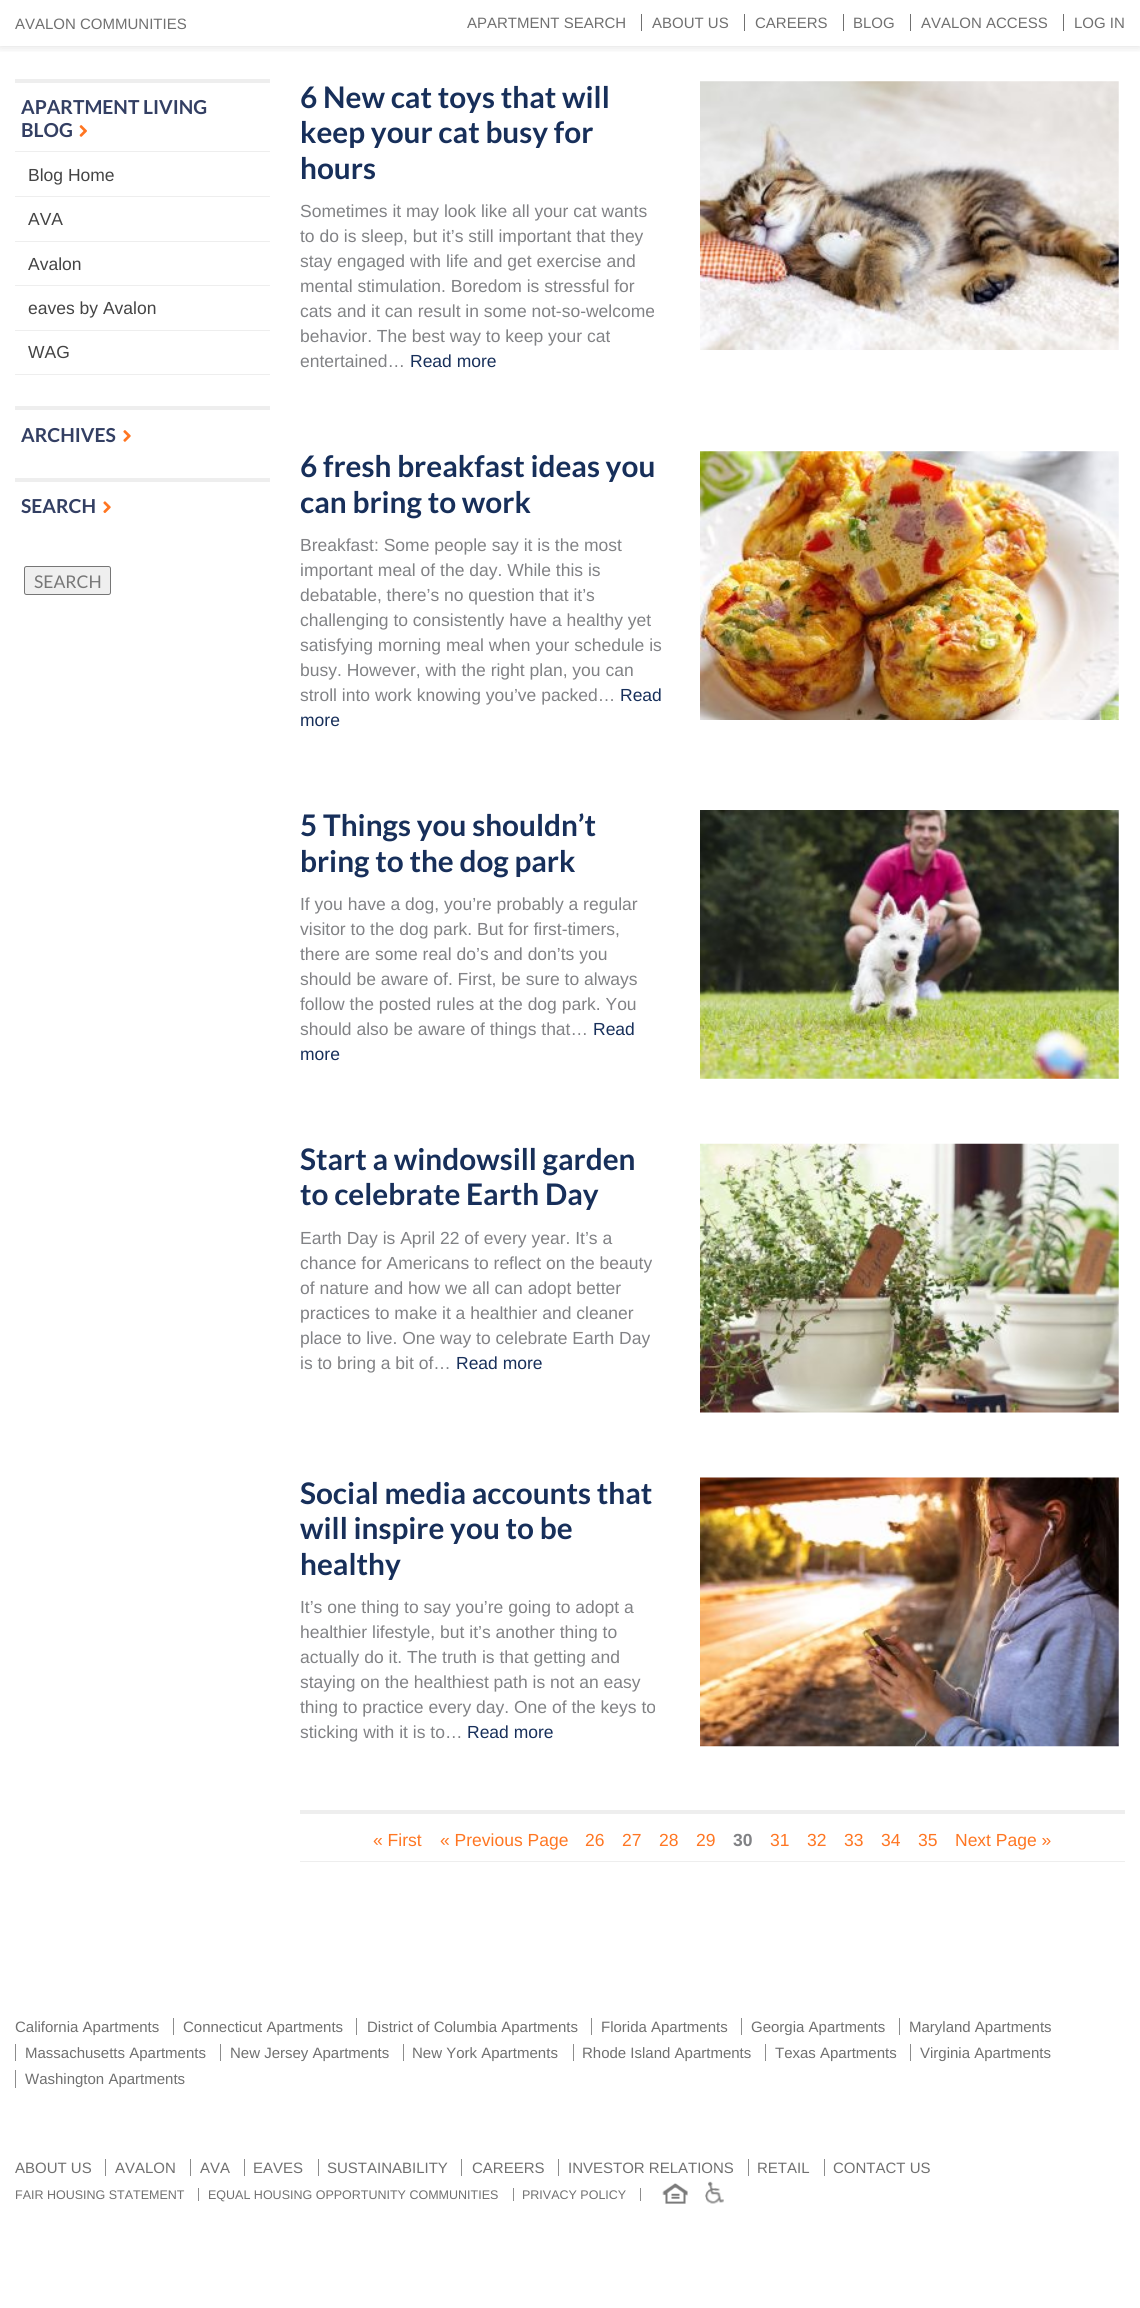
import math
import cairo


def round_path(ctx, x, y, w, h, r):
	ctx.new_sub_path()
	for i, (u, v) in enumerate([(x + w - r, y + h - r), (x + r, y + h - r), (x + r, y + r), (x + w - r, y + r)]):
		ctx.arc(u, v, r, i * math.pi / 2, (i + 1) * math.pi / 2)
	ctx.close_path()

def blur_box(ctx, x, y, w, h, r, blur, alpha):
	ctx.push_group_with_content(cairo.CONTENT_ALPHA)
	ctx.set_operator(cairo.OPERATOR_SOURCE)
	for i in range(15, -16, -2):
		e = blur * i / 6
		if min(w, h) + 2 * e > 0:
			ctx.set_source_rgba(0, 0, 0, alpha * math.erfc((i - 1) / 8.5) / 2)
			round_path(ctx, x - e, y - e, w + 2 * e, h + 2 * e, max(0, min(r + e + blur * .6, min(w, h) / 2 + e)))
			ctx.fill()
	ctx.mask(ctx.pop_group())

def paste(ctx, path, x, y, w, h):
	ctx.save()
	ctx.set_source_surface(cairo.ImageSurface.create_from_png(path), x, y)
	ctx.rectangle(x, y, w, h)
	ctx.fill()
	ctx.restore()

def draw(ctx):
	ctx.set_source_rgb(1, 1, 1)
	ctx.paint()
	ctx.save()
	ctx.rectangle(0, 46, 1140, 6)
	ctx.clip()
	ctx.set_source_rgb(0, 0, 0)
	blur_box(ctx, 0, -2, 1140, 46, 0, 6, 0.2)
	ctx.restore()
	ctx.select_font_face('Liberation Sans')
	ctx.set_font_size(15)
	ctx.set_source_rgb(0.439, 0.439, 0.439)
	for x, y, s in [
		(15, 29, 'AVALON COMMUNITIES'),
		(467, 28, 'APARTMENT SEARCH'),
		(652, 28, 'ABOUT US'),
	]:
		ctx.move_to(x, y)
		ctx.show_text(s)
	ctx.rectangle(641, 14, 1, 17)
	ctx.fill()
	ctx.move_to(755, 28)
	ctx.show_text('CAREERS')
	ctx.rectangle(744, 14, 1, 17)
	ctx.fill()
	ctx.move_to(853, 28)
	ctx.show_text('BLOG')
	ctx.rectangle(843, 14, 1, 17)
	ctx.fill()
	ctx.move_to(921, 28)
	ctx.show_text('AVALON ACCESS')
	ctx.rectangle(910, 14, 1, 17)
	ctx.fill()
	ctx.move_to(1074, 28)
	ctx.show_text('LOG IN')
	ctx.rectangle(1063, 14, 1, 17)
	ctx.fill()
	ctx.set_source_rgb(0.933, 0.933, 0.933)
	ctx.rectangle(15, 79, 255, 4)
	ctx.fill()
	ctx.select_font_face('Lato', cairo.FONT_SLANT_NORMAL, cairo.FONT_WEIGHT_BOLD)
	ctx.set_font_size(19.25)
	ctx.set_source_rgb(0.2, 0.247, 0.388)
	ctx.move_to(21, 114)
	ctx.show_text('APARTMENT LIVING')
	ctx.move_to(21, 137)
	ctx.show_text('BLOG')
	paste(ctx, 'media/1.png', 79, 125, 8, 12)
	ctx.set_source_rgb(0.933, 0.933, 0.933)
	ctx.rectangle(15, 151, 255, 1)
	ctx.fill()
	ctx.rectangle(15, 196, 255, 1)
	ctx.fill()
	ctx.select_font_face('Liberation Sans')
	ctx.set_font_size(17.5)
	ctx.set_source_rgb(0.267, 0.267, 0.267)
	ctx.move_to(28, 181)
	ctx.show_text('Blog Home')
	ctx.set_source_rgb(0.933, 0.933, 0.933)
	ctx.rectangle(15, 241, 255, 1)
	ctx.fill()
	ctx.set_source_rgb(0.267, 0.267, 0.267)
	ctx.move_to(28, 225)
	ctx.show_text('AVA')
	ctx.set_source_rgb(0.933, 0.933, 0.933)
	ctx.rectangle(15, 285, 255, 1)
	ctx.fill()
	ctx.set_source_rgb(0.267, 0.267, 0.267)
	ctx.move_to(28, 270)
	ctx.show_text('Avalon')
	ctx.set_source_rgb(0.933, 0.933, 0.933)
	ctx.rectangle(15, 330, 255, 1)
	ctx.fill()
	ctx.set_source_rgb(0.267, 0.267, 0.267)
	ctx.move_to(28, 314)
	ctx.show_text('eaves by Avalon')
	ctx.set_source_rgb(0.933, 0.933, 0.933)
	ctx.rectangle(15, 374, 255, 1)
	ctx.fill()
	ctx.set_source_rgb(0.267, 0.267, 0.267)
	ctx.move_to(28, 358)
	ctx.show_text('WAG')
	ctx.set_source_rgb(0.933, 0.933, 0.933)
	ctx.rectangle(15, 406, 255, 4)
	ctx.fill()
	ctx.select_font_face('Lato', cairo.FONT_SLANT_NORMAL, cairo.FONT_WEIGHT_BOLD)
	ctx.set_font_size(19.25)
	ctx.set_source_rgb(0.2, 0.247, 0.388)
	ctx.move_to(21, 442)
	ctx.show_text('ARCHIVES')
	paste(ctx, 'media/2.png', 123, 430, 8, 12)
	ctx.set_source_rgb(0.933, 0.933, 0.933)
	ctx.rectangle(15, 478, 255, 4)
	ctx.fill()
	ctx.set_source_rgb(0.2, 0.247, 0.388)
	ctx.move_to(21, 513)
	ctx.show_text('SEARCH')
	paste(ctx, 'media/3.png', 103, 501, 8, 12)
	ctx.set_source_rgb(0.937, 0.937, 0.937)
	round_path(ctx, 24.5, 566.5, 86, 28, 2)
	ctx.fill_preserve()
	ctx.set_source_rgb(0.463, 0.463, 0.463)
	ctx.set_line_width(1)
	ctx.stroke()
	ctx.select_font_face('Lato')
	ctx.set_font_size(17.5)
	ctx.set_source_rgb(0.467, 0.467, 0.467)
	ctx.move_to(34, 588)
	ctx.show_text('SEARCH')
	ctx.select_font_face('Lato', cairo.FONT_SLANT_NORMAL, cairo.FONT_WEIGHT_BOLD)
	ctx.set_font_size(29.75)
	ctx.set_source_rgb(0.09, 0.184, 0.353)
	for x, y, s in [
		(300, 108, '6 New cat toys that will'),
		(300, 143, 'keep your cat busy for'),
		(300, 179, 'hours'),
	]:
		ctx.move_to(x, y)
		ctx.show_text(s)
	paste(ctx, 'media/4.png', 700, 81, 419, 269)
	ctx.select_font_face('Liberation Sans')
	ctx.set_font_size(17.5)
	ctx.set_source_rgb(0.506, 0.51, 0.522)
	for x, y, s in [
		(300, 217, 'Sometimes it may look like all your cat wants'),
		(300, 242, 'to do is sleep, but it’s still important that they'),
		(300, 267, 'stay engaged with life and get exercise and'),
		(300, 292, 'mental stimulation. Boredom is stressful for'),
		(300, 317, 'cats and it can result in some not-so-welcome'),
		(300, 342, 'behavior. The best way to keep your cat'),
		(300, 367, 'entertained…'),
	]:
		ctx.move_to(x, y)
		ctx.show_text(s)
	ctx.set_source_rgb(0.09, 0.184, 0.353)
	ctx.move_to(410, 367)
	ctx.show_text('Read more')
	ctx.select_font_face('Lato', cairo.FONT_SLANT_NORMAL, cairo.FONT_WEIGHT_BOLD)
	ctx.set_font_size(29.75)
	ctx.move_to(300, 477)
	ctx.show_text('6 fresh breakfast ideas you')
	ctx.move_to(300, 513)
	ctx.show_text('can bring to work')
	paste(ctx, 'media/5.png', 700, 451, 419, 269)
	ctx.select_font_face('Liberation Sans')
	ctx.set_font_size(17.5)
	ctx.set_source_rgb(0.506, 0.51, 0.522)
	for x, y, s in [
		(300, 551, 'Breakfast: Some people say it is the most'),
		(300, 576, 'important meal of the day. While this is'),
		(300, 601, 'debatable, there’s no question that it’s'),
		(300, 626, 'challenging to consistently have a healthy yet'),
		(300, 651, 'satisfying morning meal when your schedule is'),
		(300, 676, 'busy. However, with the right plan, you can'),
		(300, 701, 'stroll into work knowing you’ve packed…'),
	]:
		ctx.move_to(x, y)
		ctx.show_text(s)
	ctx.set_source_rgb(0.09, 0.184, 0.353)
	ctx.move_to(620, 701)
	ctx.show_text('Read')
	ctx.move_to(300, 726)
	ctx.show_text('more')
	ctx.select_font_face('Lato', cairo.FONT_SLANT_NORMAL, cairo.FONT_WEIGHT_BOLD)
	ctx.set_font_size(29.75)
	ctx.move_to(300, 836)
	ctx.show_text('5 Things you shouldn’t')
	ctx.move_to(300, 872)
	ctx.show_text('bring to the dog park')
	paste(ctx, 'media/6.png', 700, 810, 419, 269)
	ctx.select_font_face('Liberation Sans')
	ctx.set_font_size(17.5)
	ctx.set_source_rgb(0.506, 0.51, 0.522)
	for x, y, s in [
		(300, 910, 'If you have a dog, you’re probably a regular'),
		(300, 935, 'visitor to the dog park. But for first-timers,'),
		(300, 960, 'there are some real do’s and don’ts you'),
		(300, 985, 'should be aware of. First, be sure to always'),
		(300, 1010, 'follow the posted rules at the dog park. You'),
		(300, 1035, 'should also be aware of things that…'),
	]:
		ctx.move_to(x, y)
		ctx.show_text(s)
	ctx.set_source_rgb(0.09, 0.184, 0.353)
	ctx.move_to(593, 1035)
	ctx.show_text('Read')
	ctx.move_to(300, 1060)
	ctx.show_text('more')
	ctx.select_font_face('Lato', cairo.FONT_SLANT_NORMAL, cairo.FONT_WEIGHT_BOLD)
	ctx.set_font_size(29.75)
	ctx.move_to(300, 1170)
	ctx.show_text('Start a windowsill garden')
	ctx.move_to(300, 1205)
	ctx.show_text('to celebrate Earth Day')
	paste(ctx, 'media/7.png', 700, 1143, 419, 270)
	ctx.select_font_face('Liberation Sans')
	ctx.set_font_size(17.5)
	ctx.set_source_rgb(0.506, 0.51, 0.522)
	for x, y, s in [
		(300, 1244, 'Earth Day is April 22 of every year. It’s a'),
		(300, 1269, 'chance for Americans to reflect on the beauty'),
		(300, 1294, 'of nature and how we all can adopt better'),
		(300, 1319, 'practices to make it a healthier and cleaner'),
		(300, 1344, 'place to live. One way to celebrate Earth Day'),
		(300, 1369, 'is to bring a bit of…'),
	]:
		ctx.move_to(x, y)
		ctx.show_text(s)
	ctx.set_source_rgb(0.09, 0.184, 0.353)
	ctx.move_to(456, 1369)
	ctx.show_text('Read more')
	ctx.select_font_face('Lato', cairo.FONT_SLANT_NORMAL, cairo.FONT_WEIGHT_BOLD)
	ctx.set_font_size(29.75)
	for x, y, s in [
		(300, 1504, 'Social media accounts that'),
		(300, 1539, 'will inspire you to be'),
		(300, 1575, 'healthy'),
	]:
		ctx.move_to(x, y)
		ctx.show_text(s)
	paste(ctx, 'media/8.png', 700, 1477, 419, 270)
	ctx.select_font_face('Liberation Sans')
	ctx.set_font_size(17.5)
	ctx.set_source_rgb(0.506, 0.51, 0.522)
	for x, y, s in [
		(300, 1613, 'It’s one thing to say you’re going to adopt a'),
		(300, 1638, 'healthier lifestyle, but it’s another thing to'),
		(300, 1663, 'actually do it. The truth is that getting and'),
		(300, 1688, 'staying on the healthiest path is not an easy'),
		(300, 1713, 'thing to practice every day. One of the keys to'),
		(300, 1738, 'sticking with it is to…'),
	]:
		ctx.move_to(x, y)
		ctx.show_text(s)
	ctx.set_source_rgb(0.09, 0.184, 0.353)
	ctx.move_to(467, 1738)
	ctx.show_text('Read more')
	ctx.set_source_rgb(0.933, 0.933, 0.933)
	ctx.rectangle(300, 1810, 825, 4)
	ctx.fill()
	ctx.rectangle(300, 1861, 825, 1)
	ctx.fill()
	ctx.set_source_rgb(1, 0.463, 0.133)
	for x, y, s in [
		(373, 1846, '« First'),
		(440, 1846, '« Previous Page'),
		(585, 1846, '26'),
		(622, 1846, '27'),
		(659, 1846, '28'),
		(696, 1846, '29'),
	]:
		ctx.move_to(x, y)
		ctx.show_text(s)
	ctx.select_font_face('Liberation Sans', cairo.FONT_SLANT_NORMAL, cairo.FONT_WEIGHT_BOLD)
	ctx.set_source_rgb(0.506, 0.51, 0.522)
	ctx.move_to(733, 1846)
	ctx.show_text('30')
	ctx.select_font_face('Liberation Sans')
	ctx.set_source_rgb(1, 0.463, 0.133)
	for x, y, s in [
		(770, 1846, '31'),
		(807, 1846, '32'),
		(844, 1846, '33'),
		(881, 1846, '34'),
		(918, 1846, '35'),
		(955, 1846, 'Next Page »'),
	]:
		ctx.move_to(x, y)
		ctx.show_text(s)
	ctx.set_font_size(15)
	ctx.set_source_rgb(0.439, 0.439, 0.439)
	ctx.move_to(15, 2032)
	ctx.show_text('California Apartments')
	ctx.move_to(183, 2032)
	ctx.show_text('Connecticut Apartments')
	ctx.set_source_rgb(0.549, 0.549, 0.549)
	ctx.rectangle(173, 2018, 1, 17)
	ctx.fill()
	ctx.set_source_rgb(0.439, 0.439, 0.439)
	ctx.move_to(367, 2032)
	ctx.show_text('District of Columbia Apartments')
	ctx.set_source_rgb(0.549, 0.549, 0.549)
	ctx.rectangle(356, 2018, 1, 17)
	ctx.fill()
	ctx.set_source_rgb(0.439, 0.439, 0.439)
	ctx.move_to(601, 2032)
	ctx.show_text('Florida Apartments')
	ctx.set_source_rgb(0.549, 0.549, 0.549)
	ctx.rectangle(591, 2018, 1, 17)
	ctx.fill()
	ctx.set_source_rgb(0.439, 0.439, 0.439)
	ctx.move_to(751, 2032)
	ctx.show_text('Georgia Apartments')
	ctx.set_source_rgb(0.549, 0.549, 0.549)
	ctx.rectangle(741, 2018, 1, 17)
	ctx.fill()
	ctx.set_source_rgb(0.439, 0.439, 0.439)
	ctx.move_to(909, 2032)
	ctx.show_text('Maryland Apartments')
	ctx.set_source_rgb(0.549, 0.549, 0.549)
	ctx.rectangle(899, 2018, 1, 17)
	ctx.fill()
	ctx.set_source_rgb(0.439, 0.439, 0.439)
	ctx.move_to(25, 2058)
	ctx.show_text('Massachusetts Apartments')
	ctx.set_source_rgb(0.549, 0.549, 0.549)
	ctx.rectangle(15, 2044, 1, 17)
	ctx.fill()
	ctx.set_source_rgb(0.439, 0.439, 0.439)
	ctx.move_to(230, 2058)
	ctx.show_text('New Jersey Apartments')
	ctx.set_source_rgb(0.549, 0.549, 0.549)
	ctx.rectangle(220, 2044, 1, 17)
	ctx.fill()
	ctx.set_source_rgb(0.439, 0.439, 0.439)
	ctx.move_to(412, 2058)
	ctx.show_text('New York Apartments')
	ctx.set_source_rgb(0.549, 0.549, 0.549)
	ctx.rectangle(403, 2044, 1, 17)
	ctx.fill()
	ctx.set_source_rgb(0.439, 0.439, 0.439)
	ctx.move_to(582, 2058)
	ctx.show_text('Rhode Island Apartments')
	ctx.set_source_rgb(0.549, 0.549, 0.549)
	ctx.rectangle(573, 2044, 1, 17)
	ctx.fill()
	ctx.set_source_rgb(0.439, 0.439, 0.439)
	ctx.move_to(775, 2058)
	ctx.show_text('Texas Apartments')
	ctx.set_source_rgb(0.549, 0.549, 0.549)
	ctx.rectangle(765, 2044, 1, 17)
	ctx.fill()
	ctx.set_source_rgb(0.439, 0.439, 0.439)
	ctx.move_to(920, 2058)
	ctx.show_text('Virginia Apartments')
	ctx.set_source_rgb(0.549, 0.549, 0.549)
	ctx.rectangle(910, 2044, 1, 17)
	ctx.fill()
	ctx.set_source_rgb(0.439, 0.439, 0.439)
	ctx.move_to(25, 2084)
	ctx.show_text('Washington Apartments')
	ctx.set_source_rgb(0.549, 0.549, 0.549)
	ctx.rectangle(15, 2070, 1, 18)
	ctx.fill()
	ctx.set_source_rgb(0.439, 0.439, 0.439)
	ctx.move_to(15, 2173)
	ctx.show_text('ABOUT US')
	ctx.move_to(115, 2173)
	ctx.show_text('AVALON')
	ctx.set_source_rgb(0.549, 0.549, 0.549)
	ctx.rectangle(105, 2159, 1, 17)
	ctx.fill()
	ctx.set_source_rgb(0.439, 0.439, 0.439)
	ctx.move_to(200, 2173)
	ctx.show_text('AVA')
	ctx.set_source_rgb(0.549, 0.549, 0.549)
	ctx.rectangle(190, 2159, 1, 17)
	ctx.fill()
	ctx.set_source_rgb(0.439, 0.439, 0.439)
	ctx.move_to(253, 2173)
	ctx.show_text('EAVES')
	ctx.set_source_rgb(0.549, 0.549, 0.549)
	ctx.rectangle(244, 2159, 1, 17)
	ctx.fill()
	ctx.set_source_rgb(0.439, 0.439, 0.439)
	ctx.move_to(327, 2173)
	ctx.show_text('SUSTAINABILITY')
	ctx.set_source_rgb(0.549, 0.549, 0.549)
	ctx.rectangle(318, 2159, 1, 17)
	ctx.fill()
	ctx.set_source_rgb(0.439, 0.439, 0.439)
	ctx.move_to(472, 2173)
	ctx.show_text('CAREERS')
	ctx.set_source_rgb(0.549, 0.549, 0.549)
	ctx.rectangle(461, 2159, 1, 17)
	ctx.fill()
	ctx.set_source_rgb(0.439, 0.439, 0.439)
	ctx.move_to(568, 2173)
	ctx.show_text('INVESTOR RELATIONS')
	ctx.set_source_rgb(0.549, 0.549, 0.549)
	ctx.rectangle(558, 2159, 1, 17)
	ctx.fill()
	ctx.set_source_rgb(0.439, 0.439, 0.439)
	ctx.move_to(757, 2173)
	ctx.show_text('RETAIL')
	ctx.set_source_rgb(0.549, 0.549, 0.549)
	ctx.rectangle(748, 2159, 1, 17)
	ctx.fill()
	ctx.set_source_rgb(0.439, 0.439, 0.439)
	ctx.move_to(833, 2173)
	ctx.show_text('CONTACT US')
	ctx.set_source_rgb(0.549, 0.549, 0.549)
	ctx.rectangle(824, 2159, 1, 17)
	ctx.fill()
	ctx.set_font_size(12.5)
	ctx.set_source_rgb(0.439, 0.439, 0.439)
	ctx.move_to(15, 2199)
	ctx.show_text('FAIR HOUSING STATEMENT')
	ctx.move_to(208, 2199)
	ctx.show_text('EQUAL HOUSING OPPORTUNITY COMMUNITIES')
	ctx.set_source_rgb(0.549, 0.549, 0.549)
	ctx.rectangle(198, 2188, 1, 13)
	ctx.fill()
	ctx.set_source_rgb(0.439, 0.439, 0.439)
	ctx.move_to(522, 2199)
	ctx.show_text('PRIVACY POLICY')
	ctx.set_source_rgb(0.549, 0.549, 0.549)
	ctx.rectangle(513, 2188, 1, 13)
	ctx.fill()
	ctx.rectangle(640, 2188, 1, 13)
	ctx.fill()
	paste(ctx, 'media/9.png', 662, 2183, 26, 21)
	paste(ctx, 'media/10.png', 705, 2181, 19, 23)


surface = cairo.ImageSurface(cairo.FORMAT_RGB24, 1140, 2308)
ctx = cairo.Context(surface)
options = cairo.FontOptions()
options.set_hint_metrics(cairo.HINT_METRICS_OFF)
options.set_hint_style(cairo.HINT_STYLE_NONE)
ctx.set_font_options(options)
ctx.set_miter_limit(4)
draw(ctx)
surface.write_to_png('image.png')
